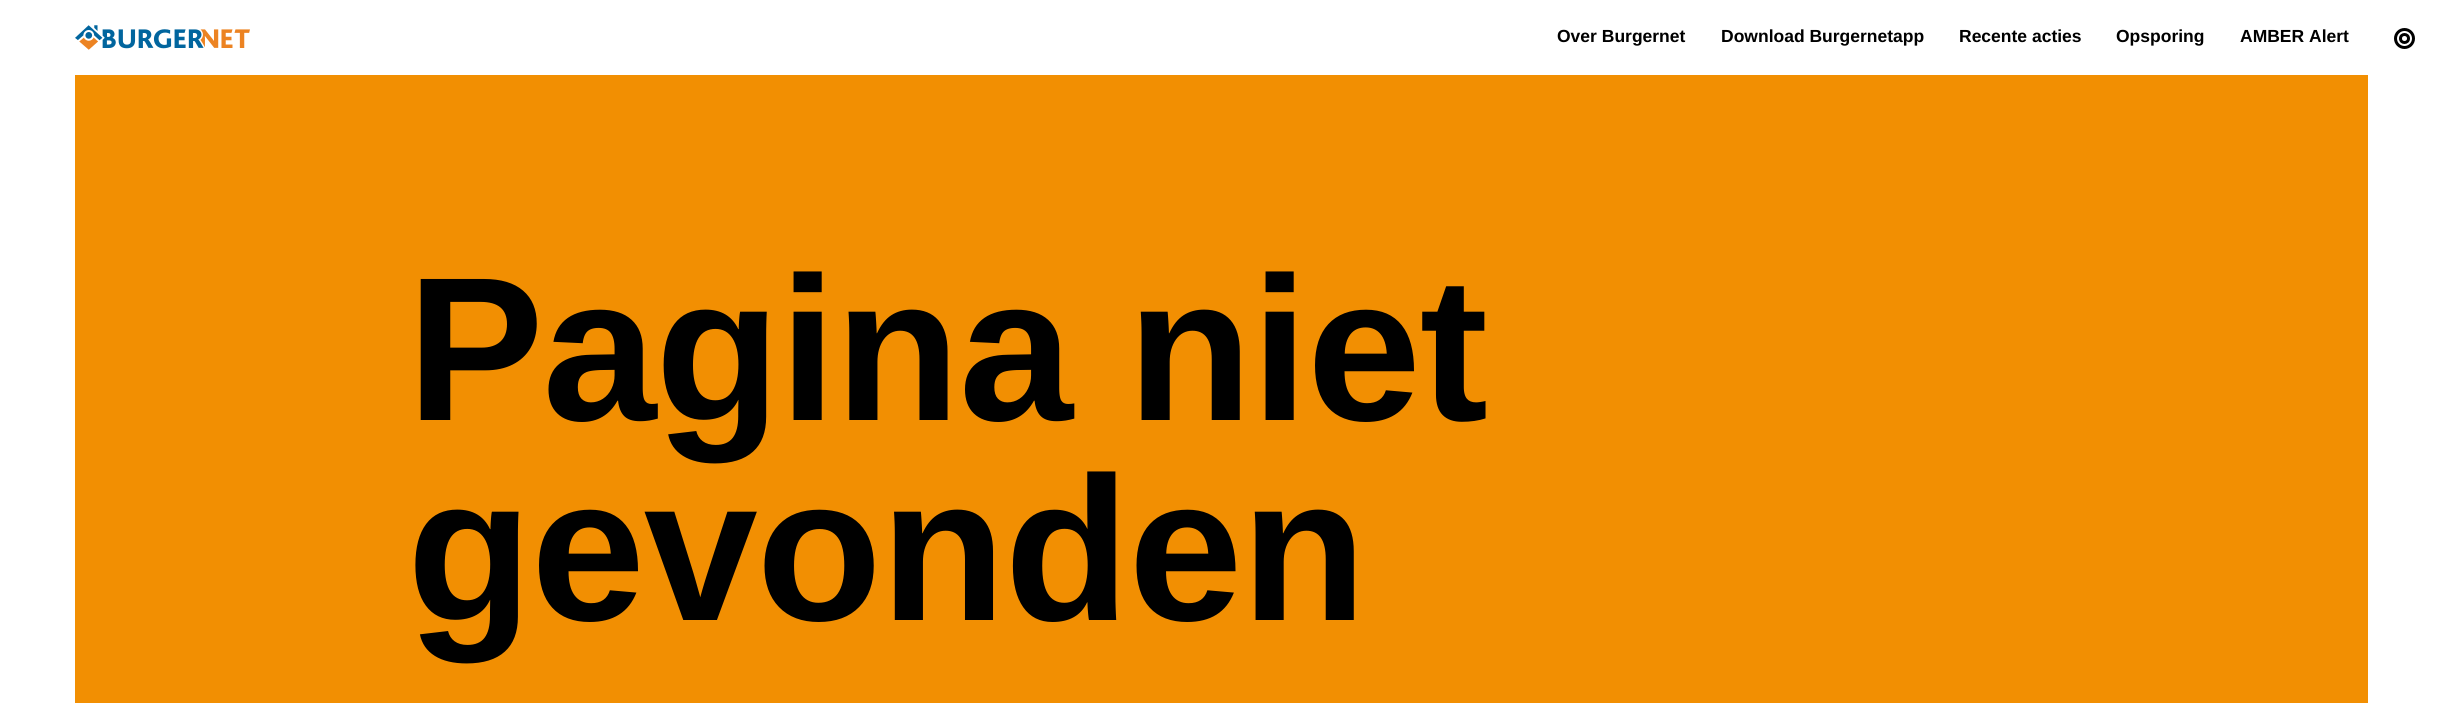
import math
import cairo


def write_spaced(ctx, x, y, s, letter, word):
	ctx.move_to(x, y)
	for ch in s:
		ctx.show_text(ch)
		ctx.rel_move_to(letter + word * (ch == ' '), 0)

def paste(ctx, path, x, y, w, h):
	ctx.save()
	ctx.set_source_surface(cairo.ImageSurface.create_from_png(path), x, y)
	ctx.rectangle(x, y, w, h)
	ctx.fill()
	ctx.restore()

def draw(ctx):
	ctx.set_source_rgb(1, 1, 1)
	ctx.paint()
	paste(ctx, 'media/1.png', 75, 25, 175, 25)
	ctx.select_font_face('Liberation Sans', cairo.FONT_SLANT_NORMAL, cairo.FONT_WEIGHT_BOLD)
	ctx.set_font_size(17.5)
	ctx.set_source_rgb(0, 0, 0)
	for x, y, s in [
		(1557, 42, 'Over Burgernet'),
		(1721, 42, 'Download Burgernetapp'),
		(1959, 42, 'Recente acties'),
		(2116, 42, 'Opsporing'),
		(2240, 42, 'AMBER Alert'),
	]:
		ctx.move_to(x, y)
		ctx.show_text(s)
	ctx.new_path()
	ctx.arc(2404.5, 38.5, 9, 0, 2 * math.pi)
	ctx.set_line_width(3)
	ctx.stroke()
	ctx.arc(2404.5, 38.5, 4, 0, 2 * math.pi)
	ctx.stroke()
	ctx.set_source_rgb(0.949, 0.561, 0.008)
	ctx.rectangle(75, 75, 2293, 628)
	ctx.fill()
	ctx.set_font_size(205)
	ctx.set_source_rgb(0, 0, 0)
	write_spaced(ctx, 407, 420, 'Pagina niet', -1.25, 0)
	write_spaced(ctx, 407, 620, 'gevonden', -1.25, 0)


surface = cairo.ImageSurface(cairo.FORMAT_RGB24, 2442, 703)
ctx = cairo.Context(surface)
options = cairo.FontOptions()
options.set_hint_metrics(cairo.HINT_METRICS_OFF)
options.set_hint_style(cairo.HINT_STYLE_NONE)
ctx.set_font_options(options)
ctx.set_miter_limit(4)
draw(ctx)
surface.write_to_png('image.png')
